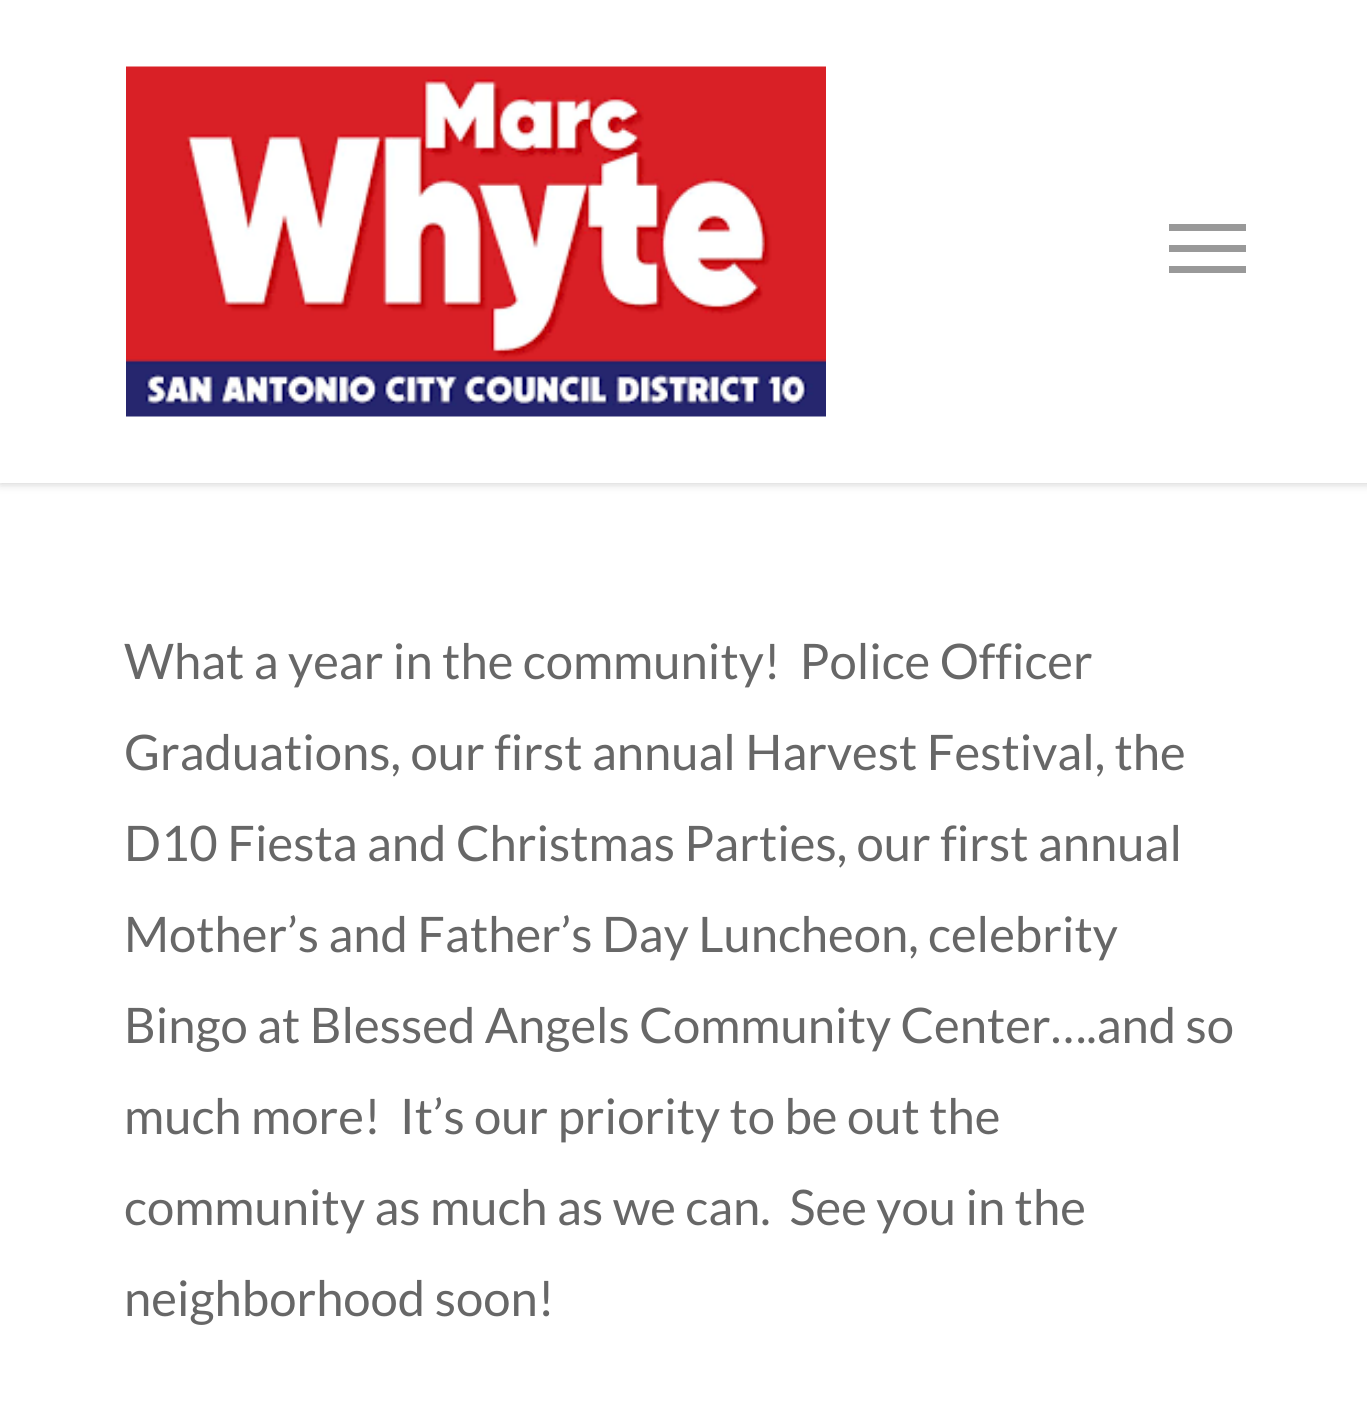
import math
import cairo


def round_path(ctx, x, y, w, h, r):
	ctx.new_sub_path()
	for i, (u, v) in enumerate([(x + w - r, y + h - r), (x + r, y + h - r), (x + r, y + r), (x + w - r, y + r)]):
		ctx.arc(u, v, r, i * math.pi / 2, (i + 1) * math.pi / 2)
	ctx.close_path()

def blur_box(ctx, x, y, w, h, r, blur, alpha):
	ctx.push_group_with_content(cairo.CONTENT_ALPHA)
	ctx.set_operator(cairo.OPERATOR_SOURCE)
	for i in range(15, -16, -2):
		e = blur * i / 6
		if min(w, h) + 2 * e > 0:
			ctx.set_source_rgba(0, 0, 0, alpha * math.erfc((i - 1) / 8.5) / 2)
			round_path(ctx, x - e, y - e, w + 2 * e, h + 2 * e, max(0, min(r + e + blur * .6, min(w, h) / 2 + e)))
			ctx.fill()
	ctx.mask(ctx.pop_group())

def paste(ctx, path, x, y, w, h):
	ctx.save()
	ctx.set_source_surface(cairo.ImageSurface.create_from_png(path), x, y)
	ctx.rectangle(x, y, w, h)
	ctx.fill()
	ctx.restore()

def draw(ctx):
	ctx.set_source_rgb(1, 1, 1)
	ctx.paint()
	ctx.set_source_rgb(0, 0, 0)
	blur_box(ctx, 0, 0, 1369, 483, 0, 5, 0.22)
	ctx.set_source_rgb(1, 1, 1)
	ctx.rectangle(0, 0, 1367, 483)
	ctx.fill()
	paste(ctx, 'media/1.png', 126, 66, 700, 351)
	ctx.set_source_rgb(0.6, 0.6, 0.6)
	ctx.rectangle(1169, 224, 77, 7)
	ctx.rectangle(1169, 266, 77, 7)
	ctx.rectangle(1169, 245, 77, 7)
	ctx.fill()
	ctx.select_font_face('Lato')
	ctx.set_font_size(49)
	ctx.set_source_rgb(0.404, 0.404, 0.404)
	for x, y, s in [
		(124, 679, 'What a year in the community!  Police Officer'),
		(124, 770, 'Graduations, our first annual Harvest Festival, the'),
		(124, 861, 'D10 Fiesta and Christmas Parties, our first annual'),
		(124, 952, 'Mother’s and Father’s Day Luncheon, celebrity'),
		(124, 1043, 'Bingo at Blessed Angels Community Center….and so'),
		(124, 1134, 'much more!  It’s our priority to be out the'),
		(124, 1225, 'community as much as we can.  See you in the'),
		(124, 1316, 'neighborhood soon!'),
	]:
		ctx.move_to(x, y)
		ctx.show_text(s)


surface = cairo.ImageSurface(cairo.FORMAT_RGB24, 1367, 1427)
ctx = cairo.Context(surface)
options = cairo.FontOptions()
options.set_hint_metrics(cairo.HINT_METRICS_OFF)
options.set_hint_style(cairo.HINT_STYLE_NONE)
ctx.set_font_options(options)
ctx.set_miter_limit(4)
draw(ctx)
surface.write_to_png('image.png')
